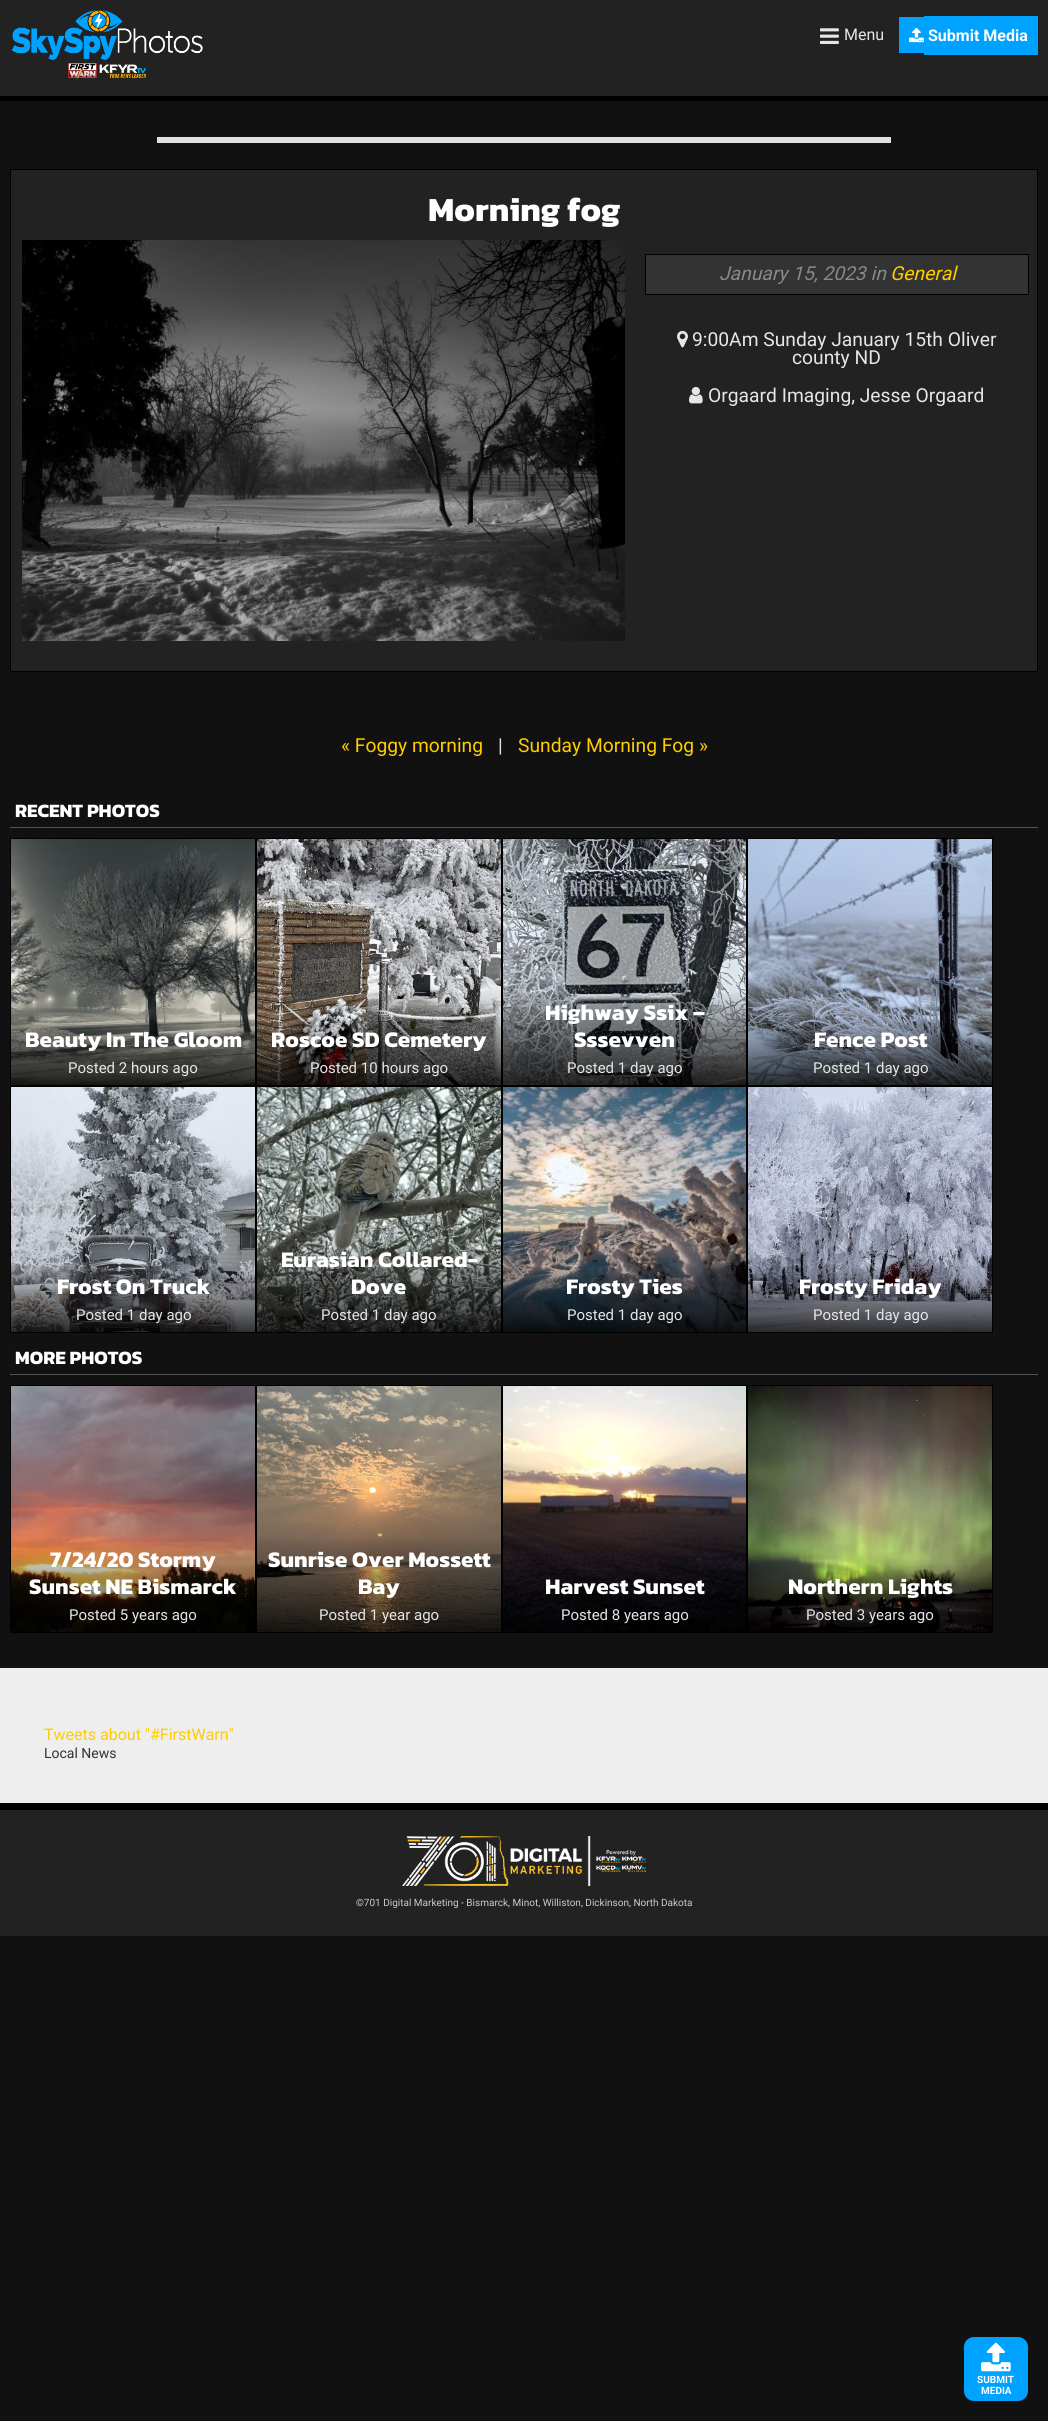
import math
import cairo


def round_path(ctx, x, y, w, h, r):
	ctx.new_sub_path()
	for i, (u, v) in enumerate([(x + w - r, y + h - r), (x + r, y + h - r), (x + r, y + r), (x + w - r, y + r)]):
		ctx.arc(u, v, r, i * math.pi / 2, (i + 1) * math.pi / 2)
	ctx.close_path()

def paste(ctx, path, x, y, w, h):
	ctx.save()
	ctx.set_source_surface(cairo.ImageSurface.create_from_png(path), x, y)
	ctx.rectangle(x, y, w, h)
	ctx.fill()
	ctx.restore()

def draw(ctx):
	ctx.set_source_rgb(0.067, 0.067, 0.067)
	ctx.paint()
	ctx.set_source_rgb(0.133, 0.133, 0.133)
	ctx.rectangle(0, 0, 1048, 96)
	ctx.fill()
	ctx.set_source_rgb(0, 0, 0)
	ctx.rectangle(0, 96, 1048, 5)
	ctx.fill()
	paste(ctx, 'media/1.png', 11, 10, 192, 70)
	paste(ctx, 'media/2.png', 820, 28, 19, 16)
	ctx.select_font_face('Roboto')
	ctx.set_font_size(16)
	ctx.set_source_rgb(0.902, 0.902, 0.902)
	ctx.move_to(844, 40)
	ctx.show_text('Menu')
	ctx.set_source_rgb(0, 0.635, 1)
	ctx.rectangle(899, 17, 25, 36)
	ctx.fill()
	ctx.rectangle(924, 16, 114, 39)
	ctx.fill()
	paste(ctx, 'media/3.png', 909, 27, 15, 16)
	ctx.select_font_face('Roboto', cairo.FONT_SLANT_NORMAL, cairo.FONT_WEIGHT_BOLD)
	ctx.set_source_rgb(1, 1, 1)
	ctx.move_to(928, 41)
	ctx.show_text('Submit Media')
	ctx.set_source_rgb(0.882, 0.882, 0.882)
	ctx.rectangle(157, 137, 734, 6)
	ctx.fill()
	ctx.set_source_rgb(0.133, 0.133, 0.133)
	ctx.rectangle(10.5, 169.5, 1027, 502)
	ctx.fill_preserve()
	ctx.set_source_rgb(0, 0, 0)
	ctx.set_line_width(1)
	ctx.stroke()
	ctx.select_font_face('Kanit', cairo.FONT_SLANT_NORMAL, cairo.FONT_WEIGHT_BOLD)
	ctx.set_font_size(34)
	ctx.set_source_rgb(1, 1, 1)
	ctx.move_to(428, 221)
	ctx.show_text('Morning fog')
	paste(ctx, 'media/4.png', 22, 240, 603, 401)
	ctx.set_source_rgb(0.2, 0.2, 0.2)
	ctx.rectangle(645.5, 254.5, 383, 40)
	ctx.fill_preserve()
	ctx.set_source_rgb(0, 0, 0)
	ctx.stroke()
	ctx.select_font_face('Roboto', cairo.FONT_SLANT_ITALIC)
	ctx.set_font_size(19.25)
	ctx.set_source_rgb(0.533, 0.533, 0.533)
	ctx.move_to(719, 280)
	ctx.show_text('January 15, 2023 in')
	ctx.set_source_rgb(1, 0.8, 0)
	ctx.move_to(890, 280)
	ctx.show_text('General')
	paste(ctx, 'media/5.png', 677, 330, 11, 18)
	ctx.select_font_face('Roboto')
	ctx.set_source_rgb(0.902, 0.902, 0.902)
	ctx.move_to(692, 346)
	ctx.show_text('9:00Am Sunday January 15th Oliver')
	ctx.move_to(792, 364)
	ctx.show_text('county ND')
	paste(ctx, 'media/6.png', 689, 386, 14, 18)
	ctx.move_to(708, 402)
	ctx.show_text('Orgaard Imaging, Jesse Orgaard')
	ctx.set_source_rgb(1, 0.8, 0)
	ctx.move_to(341, 752)
	ctx.show_text('« Foggy morning')
	ctx.set_source_rgb(0.902, 0.902, 0.902)
	ctx.move_to(498, 752)
	ctx.show_text('|')
	ctx.set_source_rgb(1, 0.8, 0)
	ctx.move_to(518, 752)
	ctx.show_text('Sunday Morning Fog »')
	ctx.set_source_rgb(0.333, 0.333, 0.333)
	ctx.rectangle(10, 827, 1028, 1)
	ctx.fill()
	ctx.select_font_face('Kanit', cairo.FONT_SLANT_NORMAL, cairo.FONT_WEIGHT_BOLD)
	ctx.set_font_size(19)
	ctx.set_source_rgb(1, 1, 1)
	ctx.move_to(15, 817)
	ctx.show_text('RECENT PHOTOS')
	paste(ctx, 'media/7.png', 11, 839, 244, 246)
	ctx.rectangle(10.5, 838.5, 245, 247)
	ctx.set_source_rgb(0, 0, 0)
	ctx.stroke()
	gradient = cairo.LinearGradient(133, 1016, 133, 1086)
	gradient.add_color_stop_rgba(0, 0, 0, 0, 0)
	gradient.add_color_stop_rgba(0.5, 0, 0, 0, 0.4)
	gradient.add_color_stop_rgba(1, 0, 0, 0, 0.8)
	ctx.set_source(gradient)
	ctx.rectangle(11, 1018, 244, 67)
	ctx.fill()
	ctx.set_font_size(22.5)
	ctx.set_source_rgb(1, 1, 1)
	ctx.move_to(25, 1047)
	ctx.show_text('Beauty In The Gloom')
	ctx.select_font_face('Roboto')
	ctx.set_font_size(15)
	ctx.set_source_rgb(0.902, 0.902, 0.902)
	ctx.move_to(68, 1073)
	ctx.show_text('Posted 2 hours ago')
	paste(ctx, 'media/8.png', 257, 839, 244, 246)
	ctx.rectangle(256.5, 838.5, 245, 247)
	ctx.set_source_rgb(0, 0, 0)
	ctx.stroke()
	gradient = cairo.LinearGradient(379, 1016, 379, 1086)
	gradient.add_color_stop_rgba(0, 0, 0, 0, 0)
	gradient.add_color_stop_rgba(0.5, 0, 0, 0, 0.4)
	gradient.add_color_stop_rgba(1, 0, 0, 0, 0.8)
	ctx.set_source(gradient)
	ctx.rectangle(257, 1018, 244, 67)
	ctx.fill()
	ctx.select_font_face('Kanit', cairo.FONT_SLANT_NORMAL, cairo.FONT_WEIGHT_BOLD)
	ctx.set_font_size(22.5)
	ctx.set_source_rgb(1, 1, 1)
	ctx.move_to(271, 1047)
	ctx.show_text('Roscoe SD Cemetery')
	ctx.select_font_face('Roboto')
	ctx.set_font_size(15)
	ctx.set_source_rgb(0.902, 0.902, 0.902)
	ctx.move_to(310, 1073)
	ctx.show_text('Posted 10 hours ago')
	paste(ctx, 'media/9.png', 503, 839, 243, 246)
	ctx.rectangle(502.5, 838.5, 244, 247)
	ctx.set_source_rgb(0, 0, 0)
	ctx.stroke()
	gradient = cairo.LinearGradient(625, 989, 625, 1086)
	gradient.add_color_stop_rgba(0, 0, 0, 0, 0)
	gradient.add_color_stop_rgba(0.5, 0, 0, 0, 0.4)
	gradient.add_color_stop_rgba(1, 0, 0, 0, 0.8)
	ctx.set_source(gradient)
	ctx.rectangle(503, 992, 243, 93)
	ctx.fill()
	ctx.select_font_face('Kanit', cairo.FONT_SLANT_NORMAL, cairo.FONT_WEIGHT_BOLD)
	ctx.set_font_size(22.5)
	ctx.set_source_rgb(1, 1, 1)
	ctx.move_to(545, 1020)
	ctx.show_text('Highway Ssix –')
	ctx.move_to(574, 1047)
	ctx.show_text('Sssevven')
	ctx.select_font_face('Roboto')
	ctx.set_font_size(15)
	ctx.set_source_rgb(0.902, 0.902, 0.902)
	ctx.move_to(567, 1073)
	ctx.show_text('Posted 1 day ago')
	paste(ctx, 'media/10.png', 748, 839, 244, 246)
	ctx.rectangle(747.5, 838.5, 245, 247)
	ctx.set_source_rgb(0, 0, 0)
	ctx.stroke()
	gradient = cairo.LinearGradient(870, 1016, 870, 1086)
	gradient.add_color_stop_rgba(0, 0, 0, 0, 0)
	gradient.add_color_stop_rgba(0.5, 0, 0, 0, 0.4)
	gradient.add_color_stop_rgba(1, 0, 0, 0, 0.8)
	ctx.set_source(gradient)
	ctx.rectangle(748, 1018, 244, 67)
	ctx.fill()
	ctx.select_font_face('Kanit', cairo.FONT_SLANT_NORMAL, cairo.FONT_WEIGHT_BOLD)
	ctx.set_font_size(22.5)
	ctx.set_source_rgb(1, 1, 1)
	ctx.move_to(814, 1047)
	ctx.show_text('Fence Post')
	ctx.select_font_face('Roboto')
	ctx.set_font_size(15)
	ctx.set_source_rgb(0.902, 0.902, 0.902)
	ctx.move_to(813, 1073)
	ctx.show_text('Posted 1 day ago')
	paste(ctx, 'media/11.png', 11, 1087, 244, 245)
	ctx.rectangle(10.5, 1086.5, 245, 246)
	ctx.set_source_rgb(0, 0, 0)
	ctx.stroke()
	gradient = cairo.LinearGradient(133, 1264, 133, 1333)
	gradient.add_color_stop_rgba(0, 0, 0, 0, 0)
	gradient.add_color_stop_rgba(0.5, 0, 0, 0, 0.4)
	gradient.add_color_stop_rgba(1, 0, 0, 0, 0.8)
	ctx.set_source(gradient)
	ctx.rectangle(11, 1266, 244, 66)
	ctx.fill()
	ctx.select_font_face('Kanit', cairo.FONT_SLANT_NORMAL, cairo.FONT_WEIGHT_BOLD)
	ctx.set_font_size(22.5)
	ctx.set_source_rgb(1, 1, 1)
	ctx.move_to(57, 1294)
	ctx.show_text('Frost On Truck')
	ctx.select_font_face('Roboto')
	ctx.set_font_size(15)
	ctx.set_source_rgb(0.902, 0.902, 0.902)
	ctx.move_to(76, 1320)
	ctx.show_text('Posted 1 day ago')
	paste(ctx, 'media/12.png', 257, 1087, 244, 245)
	ctx.rectangle(256.5, 1086.5, 245, 246)
	ctx.set_source_rgb(0, 0, 0)
	ctx.stroke()
	gradient = cairo.LinearGradient(379, 1237, 379, 1333)
	gradient.add_color_stop_rgba(0, 0, 0, 0, 0)
	gradient.add_color_stop_rgba(0.5, 0, 0, 0, 0.4)
	gradient.add_color_stop_rgba(1, 0, 0, 0, 0.8)
	ctx.set_source(gradient)
	ctx.rectangle(257, 1240, 244, 92)
	ctx.fill()
	ctx.select_font_face('Kanit', cairo.FONT_SLANT_NORMAL, cairo.FONT_WEIGHT_BOLD)
	ctx.set_font_size(22.5)
	ctx.set_source_rgb(1, 1, 1)
	ctx.move_to(281, 1267)
	ctx.show_text('Eurasian Collared-')
	ctx.move_to(351, 1294)
	ctx.show_text('Dove')
	ctx.select_font_face('Roboto')
	ctx.set_font_size(15)
	ctx.set_source_rgb(0.902, 0.902, 0.902)
	ctx.move_to(321, 1320)
	ctx.show_text('Posted 1 day ago')
	paste(ctx, 'media/13.png', 503, 1087, 243, 245)
	ctx.rectangle(502.5, 1086.5, 244, 246)
	ctx.set_source_rgb(0, 0, 0)
	ctx.stroke()
	gradient = cairo.LinearGradient(625, 1264, 625, 1333)
	gradient.add_color_stop_rgba(0, 0, 0, 0, 0)
	gradient.add_color_stop_rgba(0.5, 0, 0, 0, 0.4)
	gradient.add_color_stop_rgba(1, 0, 0, 0, 0.8)
	ctx.set_source(gradient)
	ctx.rectangle(503, 1266, 243, 66)
	ctx.fill()
	ctx.select_font_face('Kanit', cairo.FONT_SLANT_NORMAL, cairo.FONT_WEIGHT_BOLD)
	ctx.set_font_size(22.5)
	ctx.set_source_rgb(1, 1, 1)
	ctx.move_to(566, 1294)
	ctx.show_text('Frosty Ties')
	ctx.select_font_face('Roboto')
	ctx.set_font_size(15)
	ctx.set_source_rgb(0.902, 0.902, 0.902)
	ctx.move_to(567, 1320)
	ctx.show_text('Posted 1 day ago')
	paste(ctx, 'media/14.png', 748, 1087, 244, 245)
	ctx.rectangle(747.5, 1086.5, 245, 246)
	ctx.set_source_rgb(0, 0, 0)
	ctx.stroke()
	gradient = cairo.LinearGradient(870, 1264, 870, 1333)
	gradient.add_color_stop_rgba(0, 0, 0, 0, 0)
	gradient.add_color_stop_rgba(0.5, 0, 0, 0, 0.4)
	gradient.add_color_stop_rgba(1, 0, 0, 0, 0.8)
	ctx.set_source(gradient)
	ctx.rectangle(748, 1266, 244, 66)
	ctx.fill()
	ctx.select_font_face('Kanit', cairo.FONT_SLANT_NORMAL, cairo.FONT_WEIGHT_BOLD)
	ctx.set_font_size(22.5)
	ctx.set_source_rgb(1, 1, 1)
	ctx.move_to(799, 1294)
	ctx.show_text('Frosty Friday')
	ctx.select_font_face('Roboto')
	ctx.set_font_size(15)
	ctx.set_source_rgb(0.902, 0.902, 0.902)
	ctx.move_to(813, 1320)
	ctx.show_text('Posted 1 day ago')
	ctx.set_source_rgb(0.333, 0.333, 0.333)
	ctx.rectangle(10, 1374, 1028, 1)
	ctx.fill()
	ctx.select_font_face('Kanit', cairo.FONT_SLANT_NORMAL, cairo.FONT_WEIGHT_BOLD)
	ctx.set_font_size(19)
	ctx.set_source_rgb(1, 1, 1)
	ctx.move_to(15, 1364)
	ctx.show_text('MORE PHOTOS')
	paste(ctx, 'media/15.png', 11, 1386, 244, 246)
	ctx.rectangle(10.5, 1385.5, 245, 247)
	ctx.set_source_rgb(0, 0, 0)
	ctx.stroke()
	gradient = cairo.LinearGradient(133, 1536, 133, 1633)
	gradient.add_color_stop_rgba(0, 0, 0, 0, 0)
	gradient.add_color_stop_rgba(0.5, 0, 0, 0, 0.4)
	gradient.add_color_stop_rgba(1, 0, 0, 0, 0.8)
	ctx.set_source(gradient)
	ctx.rectangle(11, 1539, 244, 93)
	ctx.fill()
	ctx.set_font_size(22.5)
	ctx.set_source_rgb(1, 1, 1)
	ctx.move_to(50, 1567)
	ctx.show_text('7/24/20 Stormy')
	ctx.move_to(29, 1594)
	ctx.show_text('Sunset NE Bismarck')
	ctx.select_font_face('Roboto')
	ctx.set_font_size(15)
	ctx.set_source_rgb(0.902, 0.902, 0.902)
	ctx.move_to(69, 1620)
	ctx.show_text('Posted 5 years ago')
	paste(ctx, 'media/16.png', 257, 1386, 244, 246)
	ctx.rectangle(256.5, 1385.5, 245, 247)
	ctx.set_source_rgb(0, 0, 0)
	ctx.stroke()
	gradient = cairo.LinearGradient(379, 1536, 379, 1633)
	gradient.add_color_stop_rgba(0, 0, 0, 0, 0)
	gradient.add_color_stop_rgba(0.5, 0, 0, 0, 0.4)
	gradient.add_color_stop_rgba(1, 0, 0, 0, 0.8)
	ctx.set_source(gradient)
	ctx.rectangle(257, 1539, 244, 93)
	ctx.fill()
	ctx.select_font_face('Kanit', cairo.FONT_SLANT_NORMAL, cairo.FONT_WEIGHT_BOLD)
	ctx.set_font_size(22.5)
	ctx.set_source_rgb(1, 1, 1)
	ctx.move_to(268, 1567)
	ctx.show_text('Sunrise Over Mossett')
	ctx.move_to(358, 1594)
	ctx.show_text('Bay')
	ctx.select_font_face('Roboto')
	ctx.set_font_size(15)
	ctx.set_source_rgb(0.902, 0.902, 0.902)
	ctx.move_to(319, 1620)
	ctx.show_text('Posted 1 year ago')
	paste(ctx, 'media/17.png', 503, 1386, 243, 246)
	ctx.rectangle(502.5, 1385.5, 244, 247)
	ctx.set_source_rgb(0, 0, 0)
	ctx.stroke()
	gradient = cairo.LinearGradient(625, 1563, 625, 1633)
	gradient.add_color_stop_rgba(0, 0, 0, 0, 0)
	gradient.add_color_stop_rgba(0.5, 0, 0, 0, 0.4)
	gradient.add_color_stop_rgba(1, 0, 0, 0, 0.8)
	ctx.set_source(gradient)
	ctx.rectangle(503, 1570, 243, 62)
	ctx.fill()
	ctx.select_font_face('Kanit', cairo.FONT_SLANT_NORMAL, cairo.FONT_WEIGHT_BOLD)
	ctx.set_font_size(22.5)
	ctx.set_source_rgb(1, 1, 1)
	ctx.move_to(545, 1594)
	ctx.show_text('Harvest Sunset')
	ctx.select_font_face('Roboto')
	ctx.set_font_size(15)
	ctx.set_source_rgb(0.902, 0.902, 0.902)
	ctx.move_to(561, 1620)
	ctx.show_text('Posted 8 years ago')
	paste(ctx, 'media/18.png', 748, 1386, 244, 246)
	ctx.rectangle(747.5, 1385.5, 245, 247)
	ctx.set_source_rgb(0, 0, 0)
	ctx.stroke()
	gradient = cairo.LinearGradient(870, 1563, 870, 1633)
	gradient.add_color_stop_rgba(0, 0, 0, 0, 0)
	gradient.add_color_stop_rgba(0.5, 0, 0, 0, 0.4)
	gradient.add_color_stop_rgba(1, 0, 0, 0, 0.8)
	ctx.set_source(gradient)
	ctx.rectangle(748, 1565, 244, 67)
	ctx.fill()
	ctx.select_font_face('Kanit', cairo.FONT_SLANT_NORMAL, cairo.FONT_WEIGHT_BOLD)
	ctx.set_font_size(22.5)
	ctx.set_source_rgb(1, 1, 1)
	ctx.move_to(788, 1594)
	ctx.show_text('Northern Lights')
	ctx.select_font_face('Roboto')
	ctx.set_font_size(15)
	ctx.set_source_rgb(0.902, 0.902, 0.902)
	ctx.move_to(806, 1620)
	ctx.show_text('Posted 3 years ago')
	ctx.set_source_rgb(0.933, 0.933, 0.933)
	ctx.rectangle(0, 1668, 1048, 135)
	ctx.fill()
	ctx.set_font_size(16)
	ctx.set_source_rgb(1, 0.8, 0)
	ctx.move_to(44, 1740)
	ctx.show_text('Tweets about "#FirstWarn"')
	ctx.set_font_size(14)
	ctx.set_source_rgb(0.2, 0.2, 0.2)
	ctx.move_to(44, 1758)
	ctx.show_text('Local News')
	ctx.set_source_rgb(0.133, 0.133, 0.133)
	ctx.rectangle(0, 1810, 1048, 126)
	ctx.fill()
	ctx.set_source_rgb(0, 0, 0)
	ctx.rectangle(0, 1803, 1048, 7)
	ctx.fill()
	paste(ctx, 'media/19.png', 402, 1836, 244, 50)
	ctx.set_font_size(10)
	ctx.set_source_rgb(0.8, 0.8, 0.8)
	ctx.move_to(356, 1906)
	ctx.show_text('©701 Digital Marketing - Bismarck, Minot, Williston, Dickinson, North Dakota')
	ctx.set_source_rgb(0, 0.635, 1)
	round_path(ctx, 964, 2337, 64, 64, 10)
	ctx.fill()
	paste(ctx, 'media/20.png', 981, 2342, 30, 30)
	ctx.select_font_face('Roboto', cairo.FONT_SLANT_NORMAL, cairo.FONT_WEIGHT_BOLD)
	ctx.set_source_rgb(1, 1, 1)
	ctx.move_to(977, 2383)
	ctx.show_text('SUBMIT')
	ctx.move_to(981, 2394)
	ctx.show_text('MEDIA')


surface = cairo.ImageSurface(cairo.FORMAT_RGB24, 1048, 2421)
ctx = cairo.Context(surface)
options = cairo.FontOptions()
options.set_hint_metrics(cairo.HINT_METRICS_OFF)
options.set_hint_style(cairo.HINT_STYLE_NONE)
ctx.set_font_options(options)
ctx.set_miter_limit(4)
draw(ctx)
surface.write_to_png('image.png')
